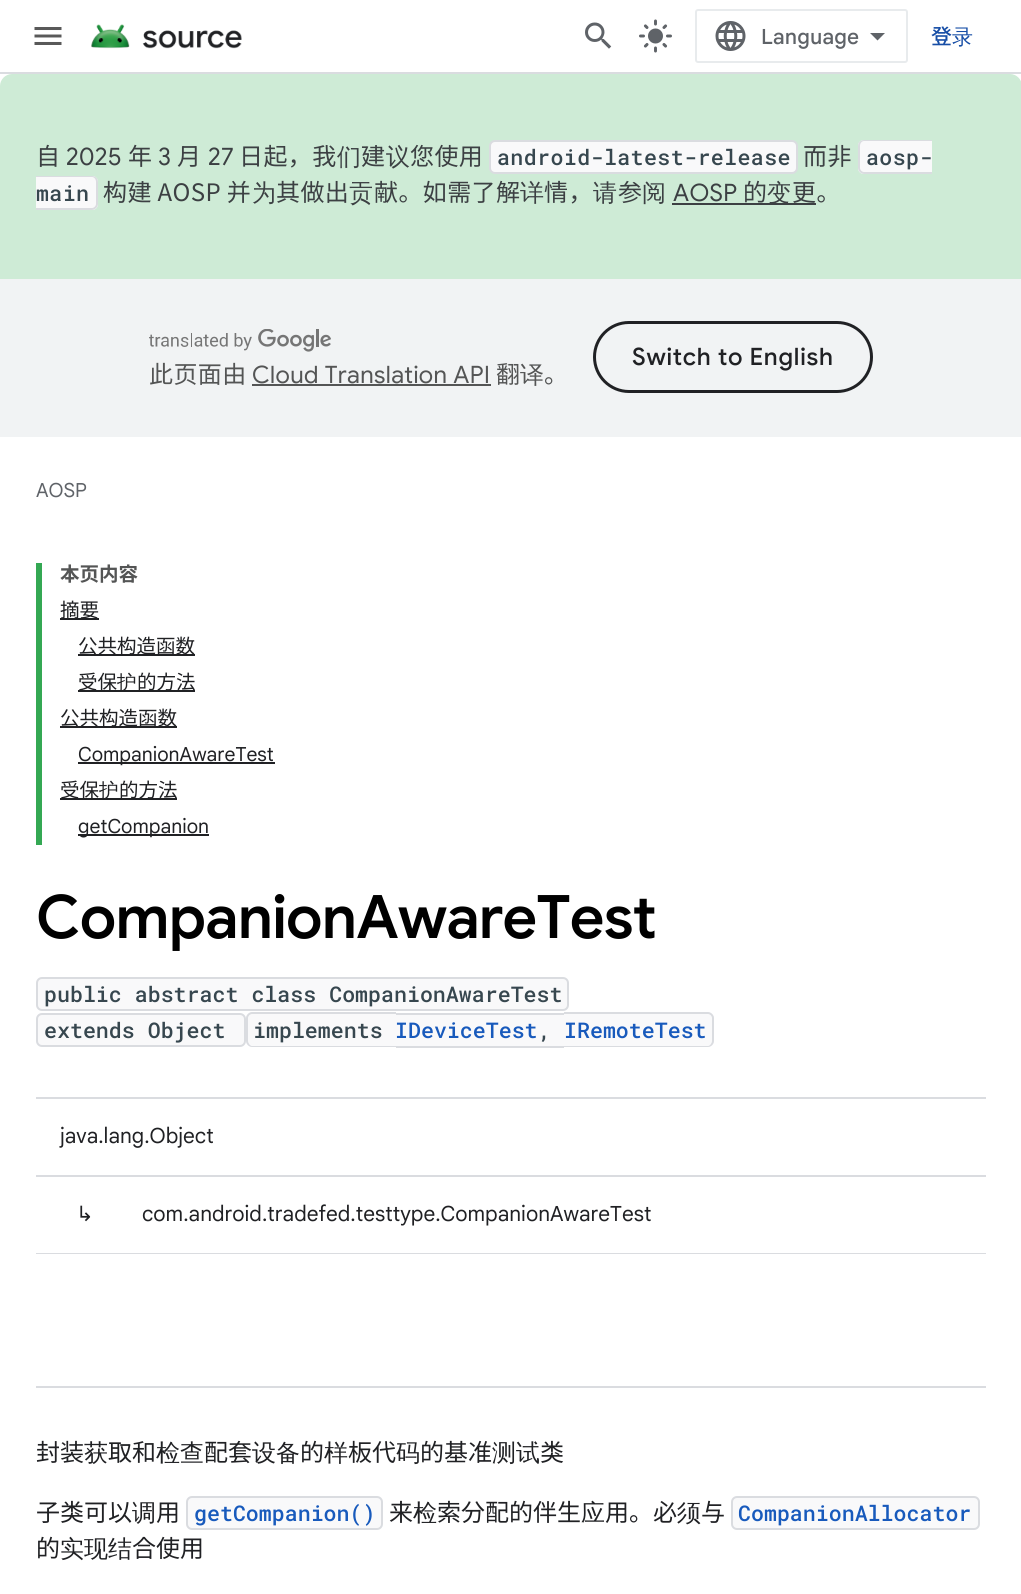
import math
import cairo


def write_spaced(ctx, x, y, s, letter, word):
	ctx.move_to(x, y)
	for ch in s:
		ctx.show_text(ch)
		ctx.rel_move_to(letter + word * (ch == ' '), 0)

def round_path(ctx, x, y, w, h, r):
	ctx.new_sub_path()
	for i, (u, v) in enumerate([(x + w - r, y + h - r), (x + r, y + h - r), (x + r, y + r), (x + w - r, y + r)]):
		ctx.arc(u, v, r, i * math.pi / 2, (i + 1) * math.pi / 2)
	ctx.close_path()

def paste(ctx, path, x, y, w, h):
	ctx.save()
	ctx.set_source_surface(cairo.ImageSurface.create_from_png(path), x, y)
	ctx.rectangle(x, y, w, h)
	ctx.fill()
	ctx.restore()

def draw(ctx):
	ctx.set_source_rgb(1, 1, 1)
	ctx.paint()
	ctx.set_source_rgb(0.855, 0.863, 0.878)
	ctx.rectangle(0, 72, 1021, 2)
	ctx.fill()
	paste(ctx, 'media/1.png', 34, 27, 28, 18)
	paste(ctx, 'media/2.png', 91, 24, 151, 25)
	paste(ctx, 'media/3.png', 585, 22, 27, 27)
	paste(ctx, 'media/4.png', 639, 19, 33, 34)
	round_path(ctx, 696, 10, 211, 52, 2)
	ctx.set_source_rgb(0.91, 0.918, 0.929)
	ctx.stroke()
	paste(ctx, 'media/5.png', 715, 21, 31, 30)
	ctx.select_font_face('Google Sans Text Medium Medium')
	ctx.set_font_size(21)
	ctx.set_source_rgb(0.373, 0.388, 0.408)
	ctx.move_to(761, 44)
	ctx.show_text('Language')
	ctx.new_path()
	ctx.move_to(877.5, 40.5)
	ctx.line_to(870, 33)
	ctx.line_to(885, 33)
	ctx.close_path()
	ctx.fill()
	ctx.select_font_face('Noto Sans JP Medium')
	ctx.set_source_rgb(0.09, 0.306, 0.651)
	write_spaced(ctx, 931, 44, '登', 0.4, 0)
	ctx.select_font_face('WenQuanYi Zen Hei Medium')
	write_spaced(ctx, 952, 44, '录', 0.4, 0)
	ctx.set_source_rgb(0.808, 0.918, 0.839)
	ctx.new_path()
	ctx.move_to(12, 74)
	ctx.line_to(1010, 74)
	ctx.curve_to(1016.5, 74, 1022, 79.5, 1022, 86)
	ctx.line_to(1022, 279)
	ctx.line_to(0, 279)
	ctx.line_to(0, 86)
	ctx.curve_to(0, 79.5, 5.5, 74, 12, 74)
	ctx.close_path()
	ctx.fill()
	ctx.select_font_face('Noto Sans JP')
	ctx.set_font_size(24)
	ctx.set_source_rgb(0.235, 0.251, 0.263)
	write_spaced(ctx, 36, 165, '自', 0.4, 0)
	ctx.select_font_face('Google Sans')
	write_spaced(ctx, 66, 165, '2025', 0.4, 0)
	ctx.select_font_face('Noto Sans JP')
	write_spaced(ctx, 128, 165, '年', 0.4, 0)
	ctx.select_font_face('Google Sans')
	write_spaced(ctx, 158, 165, '3', 0.4, 0)
	ctx.select_font_face('Noto Sans JP')
	write_spaced(ctx, 177, 165, '月', 0.4, 0)
	ctx.select_font_face('Google Sans')
	write_spaced(ctx, 208, 165, '27', 0.4, 0)
	ctx.select_font_face('Noto Sans JP')
	write_spaced(ctx, 239, 165, '日起，我', 0.4, 0)
	ctx.select_font_face('WenQuanYi Zen Hei Medium')
	write_spaced(ctx, 337, 165, '们', 0.4, 0)
	ctx.select_font_face('Noto Sans JP')
	write_spaced(ctx, 361, 165, '建', 0.4, 0)
	ctx.select_font_face('WenQuanYi Zen Hei Medium')
	write_spaced(ctx, 386, 165, '议', 0.4, 0)
	ctx.select_font_face('Noto Sans JP')
	write_spaced(ctx, 410, 165, '您使用', 0.4, 0)
	ctx.set_source_rgb(0.973, 0.976, 0.98)
	round_path(ctx, 490, 141, 307, 32, 5)
	ctx.fill_preserve()
	ctx.set_source_rgb(0.855, 0.863, 0.878)
	ctx.stroke()
	ctx.select_font_face('Roboto Mono Medium')
	ctx.set_font_size(21.6)
	ctx.set_source_rgb(0.216, 0.278, 0.31)
	write_spaced(ctx, 497, 165, 'android-latest-release', 0.4, 0)
	ctx.select_font_face('Noto Sans JP')
	ctx.set_font_size(24)
	ctx.set_source_rgb(0.235, 0.251, 0.263)
	write_spaced(ctx, 803, 165, '而非', 0.4, 0)
	ctx.set_source_rgb(0.973, 0.976, 0.98)
	ctx.new_path()
	ctx.move_to(864, 140)
	ctx.line_to(932, 140)
	ctx.line_to(932, 174)
	ctx.line_to(864, 174)
	ctx.curve_to(860.5, 174, 858, 171.5, 858, 168)
	ctx.line_to(858, 146)
	ctx.curve_to(858, 142.5, 860.5, 140, 864, 140)
	ctx.close_path()
	ctx.fill()
	ctx.set_source_rgb(0.855, 0.863, 0.878)
	ctx.set_fill_rule(cairo.FILL_RULE_EVEN_ODD)
	ctx.new_path()
	ctx.move_to(864, 140)
	ctx.line_to(932, 140)
	ctx.line_to(932, 174)
	ctx.line_to(864, 174)
	ctx.curve_to(861, 174, 858, 171, 858, 168)
	ctx.line_to(858, 146)
	ctx.curve_to(858, 142, 861, 140, 864, 140)
	ctx.close_path()
	ctx.move_to(864, 141)
	ctx.line_to(932, 141)
	ctx.line_to(932, 172)
	ctx.line_to(864, 172)
	ctx.curve_to(862, 172, 860, 170, 860, 168)
	ctx.line_to(860, 146)
	ctx.curve_to(860, 143, 862, 141, 864, 141)
	ctx.close_path()
	ctx.fill()
	ctx.select_font_face('Roboto Mono Medium')
	ctx.set_font_size(21.6)
	ctx.set_source_rgb(0.216, 0.278, 0.31)
	write_spaced(ctx, 866, 165, 'aosp-', 0.4, 0)
	ctx.set_source_rgb(0.973, 0.976, 0.98)
	ctx.new_path()
	ctx.move_to(36, 176)
	ctx.line_to(92, 176)
	ctx.curve_to(95.5, 176, 98, 178.5, 98, 182)
	ctx.line_to(98, 204)
	ctx.curve_to(98, 207.5, 95.5, 210, 92, 210)
	ctx.line_to(36, 210)
	ctx.close_path()
	ctx.fill()
	ctx.set_source_rgb(0.855, 0.863, 0.878)
	ctx.new_path()
	ctx.move_to(36, 176)
	ctx.line_to(92, 176)
	ctx.curve_to(95, 176, 98, 178, 98, 182)
	ctx.line_to(98, 204)
	ctx.curve_to(98, 207, 95, 210, 92, 210)
	ctx.line_to(36, 210)
	ctx.close_path()
	ctx.move_to(36, 177)
	ctx.line_to(92, 177)
	ctx.curve_to(94, 177, 96, 179, 96, 182)
	ctx.line_to(96, 204)
	ctx.curve_to(96, 206, 94, 208, 92, 208)
	ctx.line_to(36, 208)
	ctx.close_path()
	ctx.fill()
	ctx.set_source_rgb(0.216, 0.278, 0.31)
	write_spaced(ctx, 36, 201, 'main', 0.4, 0)
	ctx.select_font_face('Noto Sans JP')
	ctx.set_font_size(24)
	ctx.set_source_rgb(0.235, 0.251, 0.263)
	write_spaced(ctx, 103, 201, '构建 AOSP 并', 0.4, 0)
	ctx.select_font_face('WenQuanYi Zen Hei Medium')
	write_spaced(ctx, 252, 201, '为', 0.4, 0)
	ctx.select_font_face('Noto Sans JP')
	write_spaced(ctx, 276, 201, '其做出', 0.4, 0)
	ctx.select_font_face('WenQuanYi Zen Hei Medium')
	write_spaced(ctx, 349, 201, '贡', 0.4, 0)
	ctx.select_font_face('Noto Sans JP')
	write_spaced(ctx, 374, 201, '献。如需了解', 0.4, 0)
	ctx.select_font_face('WenQuanYi Zen Hei Medium')
	write_spaced(ctx, 520, 201, '详', 0.4, 0)
	ctx.select_font_face('Noto Sans JP')
	write_spaced(ctx, 544, 201, '情，', 0.4, 0)
	ctx.select_font_face('WenQuanYi Zen Hei Medium')
	write_spaced(ctx, 593, 201, '请', 0.4, 0)
	ctx.select_font_face('Noto Sans JP')
	write_spaced(ctx, 618, 201, '参', 0.4, 0)
	ctx.select_font_face('WenQuanYi Zen Hei Medium')
	write_spaced(ctx, 642, 201, '阅', 0.4, 0)
	ctx.select_font_face('Google Sans')
	write_spaced(ctx, 673, 201, 'AOSP', 0.4, 0)
	ctx.rectangle(672, 203, 144, 2)
	ctx.fill()
	ctx.select_font_face('Noto Sans JP')
	write_spaced(ctx, 743, 201, '的', 0.4, 0)
	ctx.select_font_face('WenQuanYi Zen Hei Medium')
	write_spaced(ctx, 767, 201, '变', 0.4, 0)
	ctx.select_font_face('Noto Sans JP')
	write_spaced(ctx, 792, 201, '更。', 0.4, 0)
	ctx.set_source_rgb(0.945, 0.953, 0.957)
	ctx.rectangle(0, 279, 1021, 158)
	ctx.fill()
	round_path(ctx, 594.5, 322.5, 277, 69, 34.5)
	ctx.set_source_rgb(0.125, 0.129, 0.141)
	ctx.set_line_width(3)
	ctx.stroke()
	ctx.select_font_face('Google Sans Medium')
	write_spaced(ctx, 632, 365, 'Switch to English', 0.75, 0)
	paste(ctx, 'media/6.png', 149, 329, 182, 23)
	ctx.select_font_face('Noto Sans JP')
	ctx.set_source_rgb(0.329, 0.333, 0.333)
	write_spaced(ctx, 149, 383, '此页面由', 0.4, 0)
	ctx.select_font_face('Google Sans')
	write_spaced(ctx, 252, 383, 'Cloud Translation API', 0.4, 0)
	ctx.rectangle(252, 384, 239, 2)
	ctx.fill()
	ctx.select_font_face('Noto Sans JP')
	write_spaced(ctx, 496, 383, '翻', 0.4, 0)
	ctx.select_font_face('WenQuanYi Zen Hei Medium')
	write_spaced(ctx, 520, 383, '译', 0.4, 0)
	ctx.select_font_face('Noto Sans JP')
	write_spaced(ctx, 544, 383, '。', 0.4, 0)
	ctx.select_font_face('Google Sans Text')
	ctx.set_font_size(19.5)
	ctx.set_source_rgb(0.373, 0.388, 0.408)
	ctx.move_to(36, 497)
	ctx.show_text('AOSP')
	ctx.set_source_rgb(0.204, 0.659, 0.325)
	ctx.rectangle(36, 563, 6, 282)
	ctx.fill()
	ctx.select_font_face('Noto Sans JP', cairo.FONT_SLANT_NORMAL, cairo.FONT_WEIGHT_BOLD)
	ctx.set_source_rgb(0.329, 0.333, 0.333)
	ctx.move_to(60, 581)
	ctx.show_text('本页内容')
	ctx.set_source_rgb(0.125, 0.129, 0.141)
	ctx.rectangle(60, 618, 39, 2)
	ctx.fill()
	ctx.select_font_face('Noto Sans JP')
	ctx.move_to(60, 617)
	ctx.show_text('摘要')
	ctx.rectangle(78, 654, 117, 2)
	ctx.fill()
	ctx.move_to(78, 653)
	ctx.show_text('公共构造函数')
	ctx.rectangle(78, 690, 117, 2)
	ctx.fill()
	ctx.move_to(78, 689)
	ctx.show_text('受保')
	ctx.select_font_face('WenQuanYi Zen Hei Medium')
	ctx.move_to(117, 689)
	ctx.show_text('护')
	ctx.select_font_face('Noto Sans JP')
	ctx.move_to(137, 689)
	ctx.show_text('的方法')
	ctx.rectangle(60, 726, 117, 2)
	ctx.fill()
	ctx.move_to(60, 725)
	ctx.show_text('公共构造函数')
	ctx.rectangle(78, 762, 197, 2)
	ctx.fill()
	ctx.select_font_face('Google Sans Text')
	ctx.move_to(78, 761)
	ctx.show_text('CompanionAwareTest')
	ctx.rectangle(60, 798, 117, 2)
	ctx.fill()
	ctx.select_font_face('Noto Sans JP')
	ctx.move_to(60, 797)
	ctx.show_text('受保')
	ctx.select_font_face('WenQuanYi Zen Hei Medium')
	ctx.move_to(99, 797)
	ctx.show_text('护')
	ctx.select_font_face('Noto Sans JP')
	ctx.move_to(119, 797)
	ctx.show_text('的方法')
	ctx.rectangle(78, 834, 131, 2)
	ctx.fill()
	ctx.select_font_face('Google Sans Text')
	ctx.move_to(78, 833)
	ctx.show_text('getCompanion')
	ctx.select_font_face('Google Sans SemiBold')
	ctx.set_font_size(60)
	ctx.set_source_rgb(0, 0, 0)
	write_spaced(ctx, 36, 938, 'CompanionAwareTest', -0.75, 0)
	ctx.set_source_rgb(0.973, 0.976, 0.98)
	round_path(ctx, 37, 978, 531, 32, 5)
	ctx.fill_preserve()
	ctx.set_source_rgb(0.855, 0.863, 0.878)
	ctx.set_line_width(2)
	ctx.stroke()
	ctx.select_font_face('Roboto Mono Medium')
	ctx.set_font_size(21.6)
	ctx.set_source_rgb(0.216, 0.278, 0.31)
	ctx.move_to(44, 1002)
	ctx.show_text('public abstract class CompanionAwareTest')
	ctx.set_source_rgb(0.973, 0.976, 0.98)
	round_path(ctx, 37, 1014, 208, 32, 5)
	ctx.fill_preserve()
	ctx.set_source_rgb(0.855, 0.863, 0.878)
	ctx.stroke()
	ctx.set_source_rgb(0.216, 0.278, 0.31)
	ctx.move_to(44, 1038)
	ctx.show_text('extends Object')
	ctx.set_source_rgb(0.973, 0.976, 0.98)
	ctx.new_path()
	ctx.move_to(252, 1013)
	ctx.line_to(396, 1013)
	ctx.line_to(396, 1047)
	ctx.line_to(252, 1047)
	ctx.curve_to(248.5, 1047, 246, 1044.5, 246, 1041)
	ctx.line_to(246, 1019)
	ctx.curve_to(246, 1015.5, 248.5, 1013, 252, 1013)
	ctx.close_path()
	ctx.fill()
	ctx.set_source_rgb(0.855, 0.863, 0.878)
	ctx.new_path()
	ctx.move_to(252, 1012)
	ctx.line_to(396, 1012)
	ctx.line_to(396, 1047)
	ctx.line_to(252, 1047)
	ctx.curve_to(249, 1047, 246, 1044, 246, 1041)
	ctx.line_to(246, 1018)
	ctx.curve_to(246, 1015, 249, 1012, 252, 1012)
	ctx.close_path()
	ctx.move_to(252, 1014)
	ctx.line_to(396, 1014)
	ctx.line_to(396, 1046)
	ctx.line_to(252, 1046)
	ctx.curve_to(250, 1046, 248, 1043, 248, 1041)
	ctx.line_to(248, 1018)
	ctx.curve_to(248, 1016, 250, 1014, 252, 1014)
	ctx.close_path()
	ctx.fill()
	ctx.set_source_rgb(0.216, 0.278, 0.31)
	ctx.move_to(253, 1038)
	ctx.show_text('implements')
	ctx.set_source_rgb(0.973, 0.976, 0.98)
	ctx.rectangle(396, 1015, 168, 31)
	ctx.fill()
	ctx.set_source_rgb(0.094, 0.353, 0.737)
	ctx.move_to(395, 1038)
	ctx.show_text('IDeviceTest')
	ctx.set_source_rgb(0.855, 0.863, 0.878)
	ctx.rectangle(396, 1013, 168, 2)
	ctx.fill()
	ctx.set_source_rgb(0.216, 0.278, 0.31)
	ctx.move_to(538, 1038)
	ctx.show_text(',')
	ctx.set_source_rgb(0.855, 0.863, 0.878)
	ctx.rectangle(396, 1046, 168, 2)
	ctx.fill()
	ctx.set_source_rgb(0.973, 0.976, 0.98)
	ctx.new_path()
	ctx.move_to(564, 1013)
	ctx.line_to(708, 1013)
	ctx.curve_to(711.5, 1013, 714, 1015.5, 714, 1019)
	ctx.line_to(714, 1041)
	ctx.curve_to(714, 1044.5, 711.5, 1047, 708, 1047)
	ctx.line_to(564, 1047)
	ctx.close_path()
	ctx.fill()
	ctx.set_source_rgb(0.855, 0.863, 0.878)
	ctx.new_path()
	ctx.move_to(564, 1012)
	ctx.line_to(708, 1012)
	ctx.curve_to(711, 1012, 714, 1015, 714, 1018)
	ctx.line_to(714, 1041)
	ctx.curve_to(714, 1044, 711, 1047, 708, 1047)
	ctx.line_to(564, 1047)
	ctx.close_path()
	ctx.move_to(564, 1014)
	ctx.line_to(708, 1014)
	ctx.curve_to(710, 1014, 712, 1016, 712, 1018)
	ctx.line_to(712, 1041)
	ctx.curve_to(712, 1043, 710, 1046, 708, 1046)
	ctx.line_to(564, 1046)
	ctx.close_path()
	ctx.fill()
	ctx.set_source_rgb(0.094, 0.353, 0.737)
	ctx.move_to(564, 1038)
	ctx.show_text('IRemoteTest')
	ctx.set_source_rgb(0.855, 0.863, 0.878)
	ctx.rectangle(36, 1097, 950, 2)
	ctx.fill()
	ctx.rectangle(36, 1175, 950, 2)
	ctx.fill()
	ctx.select_font_face('Google Sans Text')
	ctx.set_font_size(21)
	ctx.set_source_rgb(0.125, 0.129, 0.141)
	ctx.move_to(60, 1143)
	ctx.show_text('java.lang.Object')
	ctx.set_source_rgb(0.855, 0.863, 0.878)
	ctx.rectangle(36, 1253, 950, 1)
	ctx.fill()
	ctx.select_font_face('DejaVu Sans')
	ctx.set_source_rgb(0.125, 0.129, 0.141)
	ctx.move_to(76, 1221)
	ctx.show_text('↳')
	ctx.select_font_face('Google Sans Text')
	ctx.move_to(142, 1221)
	ctx.show_text('com.android.tradefed.testtype.CompanionAwareTest')
	ctx.set_source_rgb(0.855, 0.863, 0.878)
	ctx.rectangle(36, 1386, 950, 2)
	ctx.fill()
	ctx.select_font_face('Noto Sans JP')
	ctx.set_font_size(24)
	ctx.set_source_rgb(0.125, 0.129, 0.141)
	ctx.move_to(36, 1461)
	ctx.show_text('封装')
	ctx.select_font_face('WenQuanYi Zen Hei Medium')
	ctx.move_to(84, 1461)
	ctx.show_text('获')
	ctx.select_font_face('Noto Sans JP')
	ctx.move_to(108, 1461)
	ctx.show_text('取和')
	ctx.select_font_face('WenQuanYi Zen Hei Medium')
	ctx.move_to(156, 1461)
	ctx.show_text('检查')
	ctx.select_font_face('Noto Sans JP')
	ctx.move_to(204, 1461)
	ctx.show_text('配套')
	ctx.select_font_face('WenQuanYi Zen Hei Medium')
	ctx.move_to(252, 1461)
	ctx.show_text('设备')
	ctx.select_font_face('Noto Sans JP')
	ctx.move_to(300, 1461)
	ctx.show_text('的')
	ctx.select_font_face('WenQuanYi Zen Hei Medium')
	ctx.move_to(324, 1461)
	ctx.show_text('样')
	ctx.select_font_face('Noto Sans JP')
	ctx.move_to(348, 1461)
	ctx.show_text('板代')
	ctx.select_font_face('WenQuanYi Zen Hei Medium')
	ctx.move_to(396, 1461)
	ctx.show_text('码')
	ctx.select_font_face('Noto Sans JP')
	ctx.move_to(420, 1461)
	ctx.show_text('的基准')
	ctx.select_font_face('WenQuanYi Zen Hei Medium')
	ctx.move_to(492, 1461)
	ctx.show_text('测试')
	ctx.select_font_face('Noto Sans JP')
	ctx.move_to(540, 1461)
	ctx.show_text('类')
	ctx.move_to(36, 1521)
	ctx.show_text('子类可以')
	ctx.select_font_face('WenQuanYi Zen Hei Medium')
	ctx.move_to(132, 1521)
	ctx.show_text('调')
	ctx.select_font_face('Noto Sans JP')
	ctx.move_to(156, 1521)
	ctx.show_text('用')
	ctx.set_source_rgb(0.973, 0.976, 0.98)
	round_path(ctx, 187, 1497, 195, 32, 5)
	ctx.fill_preserve()
	ctx.set_source_rgb(0.855, 0.863, 0.878)
	ctx.stroke()
	ctx.select_font_face('Roboto Mono Medium')
	ctx.set_font_size(21.6)
	ctx.set_source_rgb(0.094, 0.353, 0.737)
	ctx.move_to(194, 1521)
	ctx.show_text('getCompanion()')
	ctx.select_font_face('Noto Sans JP')
	ctx.set_font_size(24)
	ctx.set_source_rgb(0.125, 0.129, 0.141)
	ctx.move_to(389, 1521)
	ctx.show_text('来')
	ctx.select_font_face('WenQuanYi Zen Hei Medium')
	ctx.move_to(413, 1521)
	ctx.show_text('检')
	ctx.select_font_face('Noto Sans JP')
	ctx.move_to(437, 1521)
	ctx.show_text('索分配的伴生')
	ctx.select_font_face('WenQuanYi Zen Hei Medium')
	ctx.move_to(581, 1521)
	ctx.show_text('应')
	ctx.select_font_face('Noto Sans JP')
	ctx.move_to(605, 1521)
	ctx.show_text('用。必')
	ctx.select_font_face('WenQuanYi Zen Hei Medium')
	ctx.move_to(677, 1521)
	ctx.show_text('须')
	ctx.select_font_face('Noto Sans JP')
	ctx.move_to(701, 1521)
	ctx.show_text('与')
	ctx.set_source_rgb(0.973, 0.976, 0.98)
	round_path(ctx, 732, 1497, 247, 32, 5)
	ctx.fill_preserve()
	ctx.set_source_rgb(0.855, 0.863, 0.878)
	ctx.stroke()
	ctx.select_font_face('Roboto Mono Medium')
	ctx.set_font_size(21.6)
	ctx.set_source_rgb(0.094, 0.353, 0.737)
	ctx.move_to(738, 1521)
	ctx.show_text('CompanionAllocator')
	ctx.select_font_face('Noto Sans JP')
	ctx.set_font_size(24)
	ctx.set_source_rgb(0.125, 0.129, 0.141)
	ctx.move_to(36, 1557)
	ctx.show_text('的')
	ctx.select_font_face('WenQuanYi Zen Hei Medium')
	ctx.move_to(60, 1557)
	ctx.show_text('实现结')
	ctx.select_font_face('Noto Sans JP')
	ctx.move_to(132, 1557)
	ctx.show_text('合使用')


surface = cairo.ImageSurface(cairo.FORMAT_RGB24, 1021, 1594)
ctx = cairo.Context(surface)
options = cairo.FontOptions()
options.set_hint_metrics(cairo.HINT_METRICS_OFF)
options.set_hint_style(cairo.HINT_STYLE_NONE)
ctx.set_font_options(options)
ctx.set_miter_limit(4)
draw(ctx)
surface.write_to_png('image.png')
